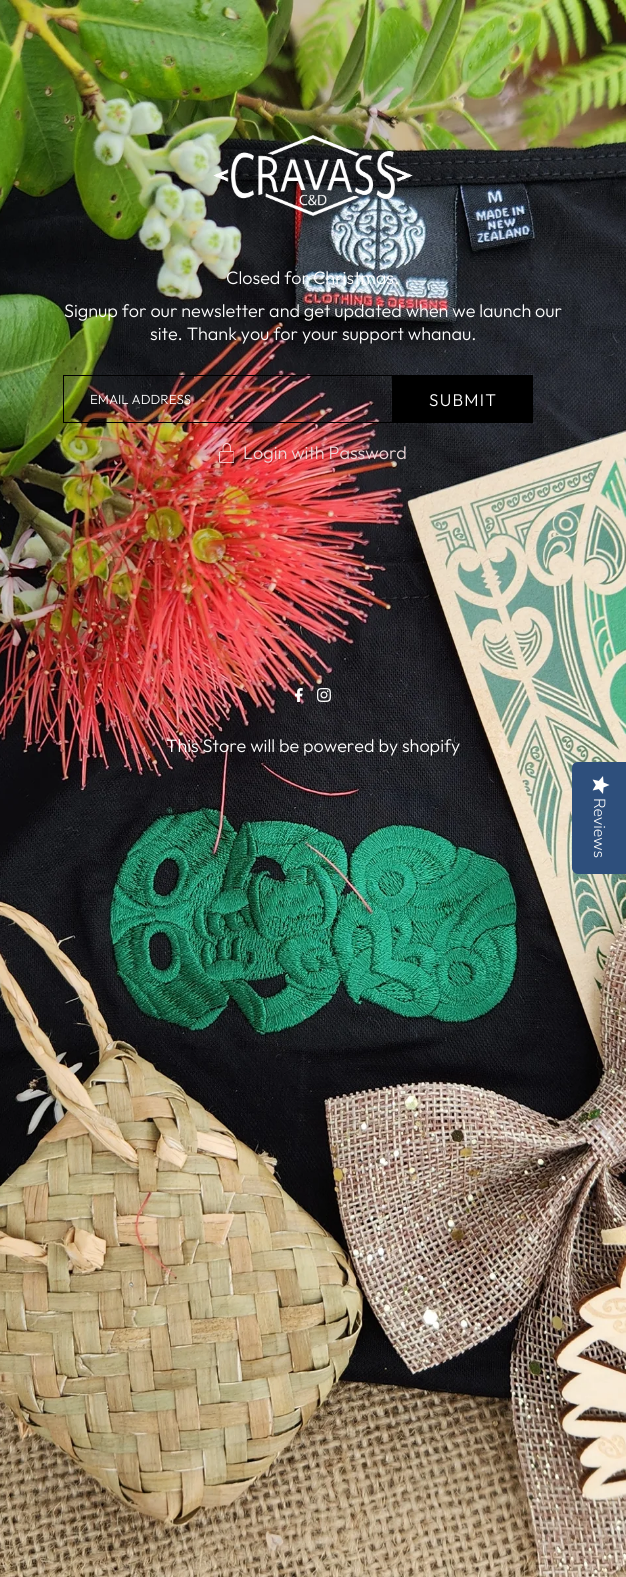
import math
import cairo


def write_spaced(ctx, x, y, s, letter, word):
	ctx.move_to(x, y)
	for ch in s:
		ctx.show_text(ch)
		ctx.rel_move_to(letter + word * (ch == ' '), 0)

def paste(ctx, path, x, y, w, h):
	ctx.save()
	ctx.set_source_surface(cairo.ImageSurface.create_from_png(path), x, y)
	ctx.rectangle(x, y, w, h)
	ctx.fill()
	ctx.restore()

def draw(ctx):
	ctx.set_source_rgb(1, 1, 1)
	ctx.paint()
	paste(ctx, 'media/1.png', 0, 0, 626, 1577)
	paste(ctx, 'media/2.png', 213, 135, 200, 81)
	ctx.select_font_face('Outfit Light')
	ctx.set_font_size(18)
	ctx.set_source_rgb(1, 1, 1)
	for x, y, s in [
		(226, 284, 'Closed for Christmas.'),
		(64, 317, 'Signup for our newsletter and get updated when we launch our'),
		(150, 340, 'site. Thank you for your support whanau.'),
	]:
		ctx.move_to(x, y)
		ctx.show_text(s)
	ctx.rectangle(63.5, 375.5, 329, 47)
	ctx.set_source_rgb(0, 0, 0)
	ctx.set_line_width(1)
	ctx.stroke()
	ctx.set_font_size(13.25)
	ctx.set_source_rgb(1, 1, 1)
	ctx.move_to(90, 404)
	ctx.show_text('EMAIL ADDRESS')
	ctx.set_source_rgb(0, 0, 0)
	ctx.rectangle(393, 375, 140, 48)
	ctx.fill()
	ctx.set_font_size(17)
	ctx.set_source_rgb(1, 1, 1)
	write_spaced(ctx, 429, 406, 'SUBMIT', 1.25, 0)
	paste(ctx, 'media/3.png', 219, 443, 15, 20)
	ctx.set_font_size(18)
	ctx.set_source_rgb(0.922, 0.847, 0.851)
	ctx.move_to(243, 459)
	ctx.show_text('Login with Password')
	paste(ctx, 'media/4.png', 295, 688, 8, 14)
	paste(ctx, 'media/5.png', 317, 688, 14, 14)
	ctx.set_source_rgb(1, 1, 1)
	ctx.move_to(166, 752)
	ctx.show_text('This Store will be powered by shopify')
	ctx.set_source_rgb(0.18, 0.31, 0.486)
	ctx.new_path()
	ctx.move_to(626, 762)
	ctx.line_to(626, 874)
	ctx.line_to(578, 874)
	ctx.curve_to(575, 874, 572, 871, 572, 868)
	ctx.line_to(572, 768)
	ctx.curve_to(572, 764, 575, 762, 578, 762)
	ctx.close_path()
	ctx.fill()
	paste(ctx, 'media/6.png', 592, 776, 18, 18)
	ctx.select_font_face('Nunito Sans Light')
	ctx.set_font_size(16)
	ctx.set_source_rgb(1, 1, 1)
	ctx.save()
	ctx.translate(594, 798)
	ctx.rotate(90 * math.pi / 180)
	ctx.move_to(0, 0)
	ctx.show_text('Reviews')
	ctx.restore()


surface = cairo.ImageSurface(cairo.FORMAT_RGB24, 626, 1577)
ctx = cairo.Context(surface)
options = cairo.FontOptions()
options.set_hint_metrics(cairo.HINT_METRICS_OFF)
options.set_hint_style(cairo.HINT_STYLE_NONE)
ctx.set_font_options(options)
ctx.set_miter_limit(4)
draw(ctx)
surface.write_to_png('image.png')
